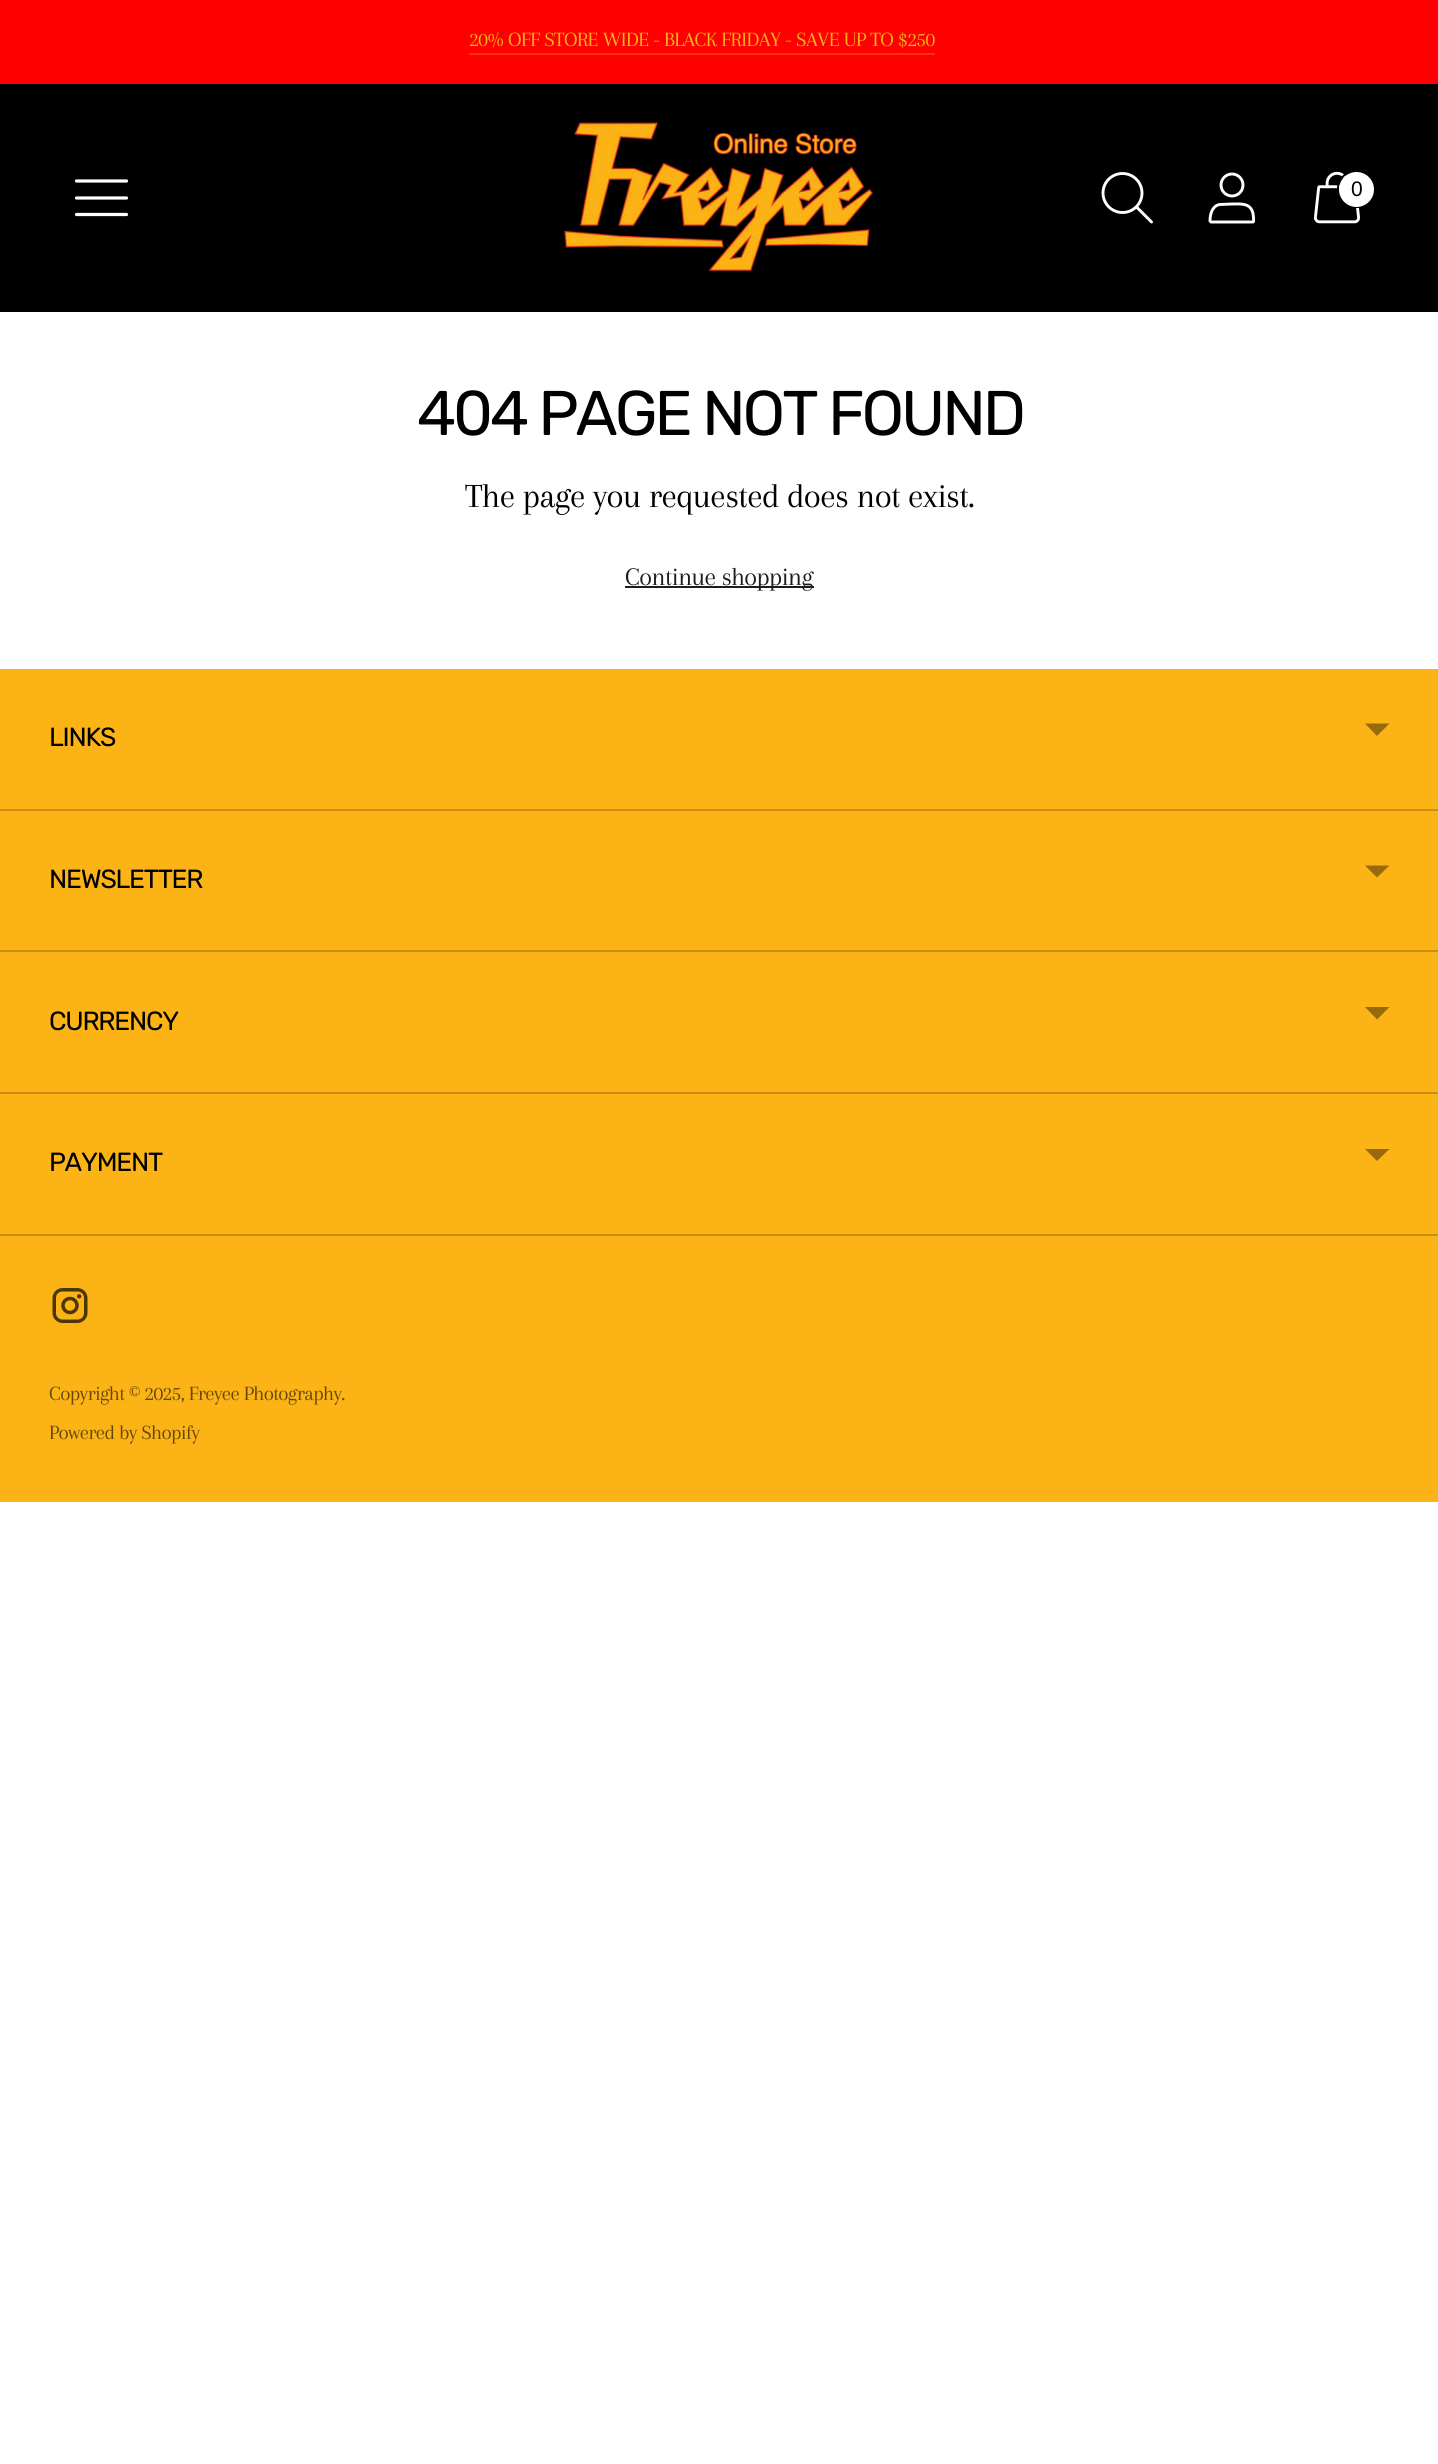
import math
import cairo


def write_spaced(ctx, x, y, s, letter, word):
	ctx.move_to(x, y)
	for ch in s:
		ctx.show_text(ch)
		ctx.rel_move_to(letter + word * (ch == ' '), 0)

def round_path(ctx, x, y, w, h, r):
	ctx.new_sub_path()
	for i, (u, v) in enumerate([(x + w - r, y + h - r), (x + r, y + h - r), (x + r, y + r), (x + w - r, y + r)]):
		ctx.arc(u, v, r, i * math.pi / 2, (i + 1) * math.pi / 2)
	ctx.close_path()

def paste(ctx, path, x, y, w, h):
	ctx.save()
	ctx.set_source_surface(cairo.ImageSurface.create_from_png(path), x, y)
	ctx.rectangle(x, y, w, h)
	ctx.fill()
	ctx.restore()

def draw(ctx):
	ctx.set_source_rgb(1, 1, 1)
	ctx.paint()
	ctx.set_source_rgb(1, 0, 0)
	ctx.rectangle(0, 0, 1438, 84)
	ctx.fill()
	ctx.select_font_face('Arapey')
	ctx.set_font_size(21)
	ctx.set_source_rgb(0.988, 0.702, 0.086)
	write_spaced(ctx, 469, 46, '20% OFF STORE WIDE - BLACK FRIDAY - SAVE UP TO $250', -0.53, 0)
	ctx.set_source_rgb(0.996, 0.212, 0.027)
	ctx.rectangle(469, 53, 466, 2)
	ctx.fill()
	ctx.set_source_rgb(0, 0, 0)
	ctx.rectangle(0, 84, 1438, 228)
	ctx.fill()
	ctx.new_path()
	ctx.move_to(76.5, 198)
	ctx.line_to(126.5, 198)
	ctx.move_to(76.5, 181)
	ctx.line_to(126.5, 181)
	ctx.move_to(76.5, 214.5)
	ctx.line_to(126.5, 214.5)
	ctx.set_source_rgb(1, 1, 1)
	ctx.set_line_width(3.2)
	ctx.set_line_cap(cairo.LINE_CAP_ROUND)
	ctx.set_line_join(cairo.LINE_JOIN_ROUND)
	ctx.stroke()
	paste(ctx, 'media/1.png', 564, 122, 310, 150)
	ctx.arc(1122.5, 193, 19.5, 0, 2 * math.pi)
	ctx.set_line_width(2.9)
	ctx.set_line_cap(cairo.LINE_CAP_BUTT)
	ctx.set_line_join(cairo.LINE_JOIN_MITER)
	ctx.stroke()
	ctx.new_path()
	ctx.move_to(1137, 207.5)
	ctx.line_to(1151.5, 222)
	ctx.set_line_cap(cairo.LINE_CAP_ROUND)
	ctx.set_line_join(cairo.LINE_JOIN_ROUND)
	ctx.stroke()
	ctx.arc(1232, 185, 11, 0, 2 * math.pi)
	ctx.set_line_cap(cairo.LINE_CAP_BUTT)
	ctx.set_line_join(cairo.LINE_JOIN_MITER)
	ctx.stroke()
	ctx.new_path()
	ctx.move_to(1253, 222)
	ctx.curve_to(1254.5, 222, 1253, 214.5, 1253, 213.5)
	ctx.curve_to(1250.5, 202.5, 1240.5, 204, 1232, 204)
	ctx.line_to(1219.5, 204.5)
	ctx.curve_to(1212, 206, 1210, 214.5, 1210, 221)
	ctx.line_to(1211, 222)
	ctx.close_path()
	ctx.set_line_cap(cairo.LINE_CAP_ROUND)
	ctx.set_line_join(cairo.LINE_JOIN_ROUND)
	ctx.stroke()
	paste(ctx, 'media/2.png', 1313, 171, 47, 53)
	round_path(ctx, 1338, 171, 37, 36, 18)
	ctx.set_source_rgb(0, 0, 0)
	ctx.set_line_width(2)
	ctx.set_line_cap(cairo.LINE_CAP_BUTT)
	ctx.set_line_join(cairo.LINE_JOIN_MITER)
	ctx.stroke()
	ctx.set_source_rgb(1, 1, 1)
	ctx.arc(1356.5, 189.5, 17.5, 0, 2 * math.pi)
	ctx.fill()
	ctx.select_font_face('Liberation Sans')
	ctx.set_source_rgb(0, 0, 0)
	write_spaced(ctx, 1351, 196, '0', -0.65, 0)
	ctx.select_font_face('Rubik')
	ctx.set_font_size(63)
	write_spaced(ctx, 417, 435, '404 PAGE NOT FOUND', -3.1, 0)
	ctx.select_font_face('Arapey')
	ctx.set_font_size(35)
	write_spaced(ctx, 465, 507, 'The page you requested does not exist.', -0.65, 0)
	ctx.set_source_rgb(0.114, 0.114, 0.114)
	ctx.rectangle(625, 586, 189, 2)
	ctx.fill()
	ctx.set_font_size(26.25)
	write_spaced(ctx, 625, 585, 'Continue shopping', -0.65, 0)
	ctx.set_source_rgb(0.988, 0.702, 0.086)
	ctx.rectangle(0, 669, 1438, 833)
	ctx.fill()
	ctx.set_source_rgb(0.792, 0.561, 0.071)
	ctx.rectangle(0, 809, 1438, 2)
	ctx.fill()
	ctx.select_font_face('Rubik')
	ctx.set_source_rgb(0, 0, 0)
	write_spaced(ctx, 49, 746, 'LINKS', -1.25, 0)
	ctx.set_source_rgb(0.592, 0.42, 0.051)
	ctx.new_path()
	ctx.move_to(1365, 723.5)
	ctx.line_to(1377, 736)
	ctx.line_to(1389.5, 723.5)
	ctx.close_path()
	ctx.fill()
	ctx.set_source_rgb(0.792, 0.561, 0.071)
	ctx.rectangle(0, 950, 1438, 2)
	ctx.fill()
	ctx.set_source_rgb(0, 0, 0)
	write_spaced(ctx, 49, 888, 'NEWSLETTER', -1.25, 0)
	ctx.set_source_rgb(0.592, 0.42, 0.051)
	ctx.new_path()
	ctx.move_to(1365, 865.5)
	ctx.line_to(1377, 877.5)
	ctx.line_to(1389.5, 865.5)
	ctx.close_path()
	ctx.fill()
	ctx.set_source_rgb(0.792, 0.561, 0.071)
	ctx.rectangle(0, 1092, 1438, 2)
	ctx.fill()
	ctx.set_source_rgb(0, 0, 0)
	write_spaced(ctx, 49, 1030, 'CURRENCY', -1.25, 0)
	ctx.set_source_rgb(0.592, 0.42, 0.051)
	ctx.new_path()
	ctx.move_to(1365, 1007)
	ctx.line_to(1377, 1019.5)
	ctx.line_to(1389.5, 1007)
	ctx.close_path()
	ctx.fill()
	ctx.set_source_rgb(0.792, 0.561, 0.071)
	ctx.rectangle(0, 1234, 1438, 2)
	ctx.fill()
	ctx.set_source_rgb(0, 0, 0)
	write_spaced(ctx, 49, 1171, 'PAYMENT', -1.25, 0)
	ctx.set_source_rgb(0.592, 0.42, 0.051)
	ctx.new_path()
	ctx.move_to(1365, 1149)
	ctx.line_to(1377, 1161)
	ctx.line_to(1389.5, 1149)
	ctx.close_path()
	ctx.fill()
	paste(ctx, 'media/3.png', 52, 1288, 36, 35)
	ctx.select_font_face('Arapey')
	ctx.set_font_size(21)
	ctx.set_source_rgb(0.396, 0.282, 0.035)
	write_spaced(ctx, 49, 1400, 'Copyright © 2025, Freyee Photography.', -0.65, 0)
	write_spaced(ctx, 49, 1439, 'Powered by Shopify', -0.65, 0)


surface = cairo.ImageSurface(cairo.FORMAT_RGB24, 1438, 2464)
ctx = cairo.Context(surface)
options = cairo.FontOptions()
options.set_hint_metrics(cairo.HINT_METRICS_OFF)
options.set_hint_style(cairo.HINT_STYLE_NONE)
ctx.set_font_options(options)
ctx.set_miter_limit(4)
draw(ctx)
surface.write_to_png('image.png')
